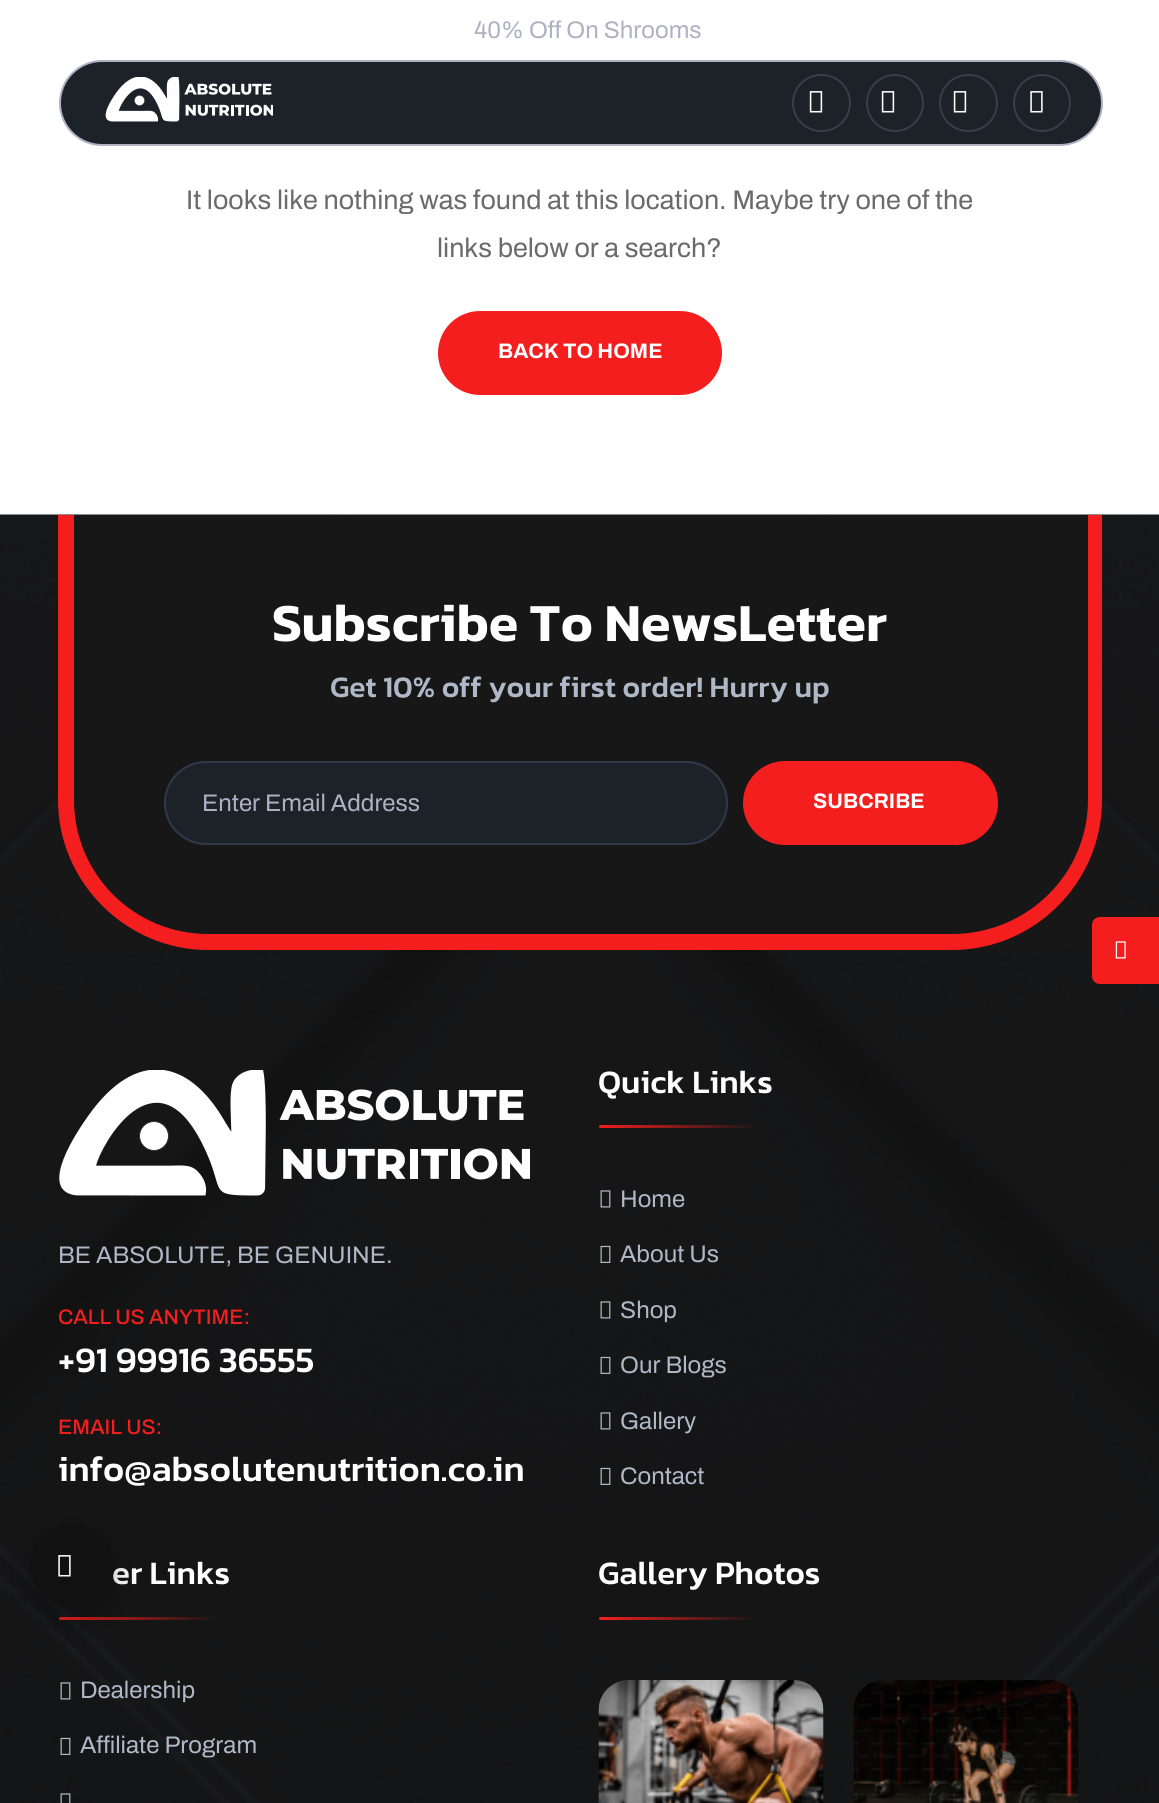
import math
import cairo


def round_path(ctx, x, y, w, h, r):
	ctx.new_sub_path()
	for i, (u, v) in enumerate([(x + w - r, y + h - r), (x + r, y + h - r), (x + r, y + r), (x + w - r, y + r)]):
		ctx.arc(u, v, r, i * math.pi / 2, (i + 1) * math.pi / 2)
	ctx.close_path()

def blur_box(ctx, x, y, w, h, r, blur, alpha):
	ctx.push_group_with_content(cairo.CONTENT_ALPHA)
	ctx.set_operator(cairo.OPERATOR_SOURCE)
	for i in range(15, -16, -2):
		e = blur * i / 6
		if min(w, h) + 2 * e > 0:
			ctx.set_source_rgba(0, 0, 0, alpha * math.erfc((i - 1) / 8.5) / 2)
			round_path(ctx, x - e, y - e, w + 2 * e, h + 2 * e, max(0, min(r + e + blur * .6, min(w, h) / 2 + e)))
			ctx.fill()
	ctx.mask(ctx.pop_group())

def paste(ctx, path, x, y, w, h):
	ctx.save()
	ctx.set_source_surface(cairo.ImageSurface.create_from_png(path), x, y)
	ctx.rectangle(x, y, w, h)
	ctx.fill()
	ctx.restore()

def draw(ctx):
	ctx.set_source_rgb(1, 1, 1)
	ctx.paint()
	ctx.select_font_face('Archivo')
	ctx.set_font_size(24)
	ctx.set_source_rgb(0.686, 0.694, 0.765)
	ctx.move_to(474, 38)
	ctx.show_text('40% Off On Shrooms')
	ctx.set_source_rgb(0.114, 0.133, 0.161)
	round_path(ctx, 60, 61, 1042, 84, 42)
	ctx.fill_preserve()
	ctx.set_source_rgb(0.686, 0.694, 0.765)
	ctx.stroke()
	paste(ctx, 'media/1.png', 105, 77, 168, 45)
	round_path(ctx, 793, 75, 57, 56, 28)
	ctx.set_source_rgb(0.22, 0.243, 0.278)
	ctx.stroke()
	paste(ctx, 'media/2.png', 809, 91, 14, 22)
	ctx.arc(895, 103, 28, 0, 2 * math.pi)
	ctx.stroke()
	paste(ctx, 'media/2.png', 881, 91, 14, 22)
	round_path(ctx, 940, 75, 57, 56, 28)
	ctx.stroke()
	paste(ctx, 'media/2.png', 953, 91, 14, 22)
	ctx.arc(1042, 103, 28, 0, 2 * math.pi)
	ctx.stroke()
	paste(ctx, 'media/3.png', 1030, 91, 13, 22)
	ctx.set_font_size(27)
	ctx.set_source_rgb(0.416, 0.416, 0.416)
	ctx.move_to(186, 209)
	ctx.show_text('It looks like nothing was found at this location. Maybe try one of the')
	ctx.move_to(437, 257)
	ctx.show_text('links below or a search?')
	ctx.set_source_rgb(0.957, 0.118, 0.118)
	round_path(ctx, 438, 311, 284, 84, 42)
	ctx.fill()
	ctx.select_font_face('Archivo', cairo.FONT_SLANT_NORMAL, cairo.FONT_WEIGHT_BOLD)
	ctx.set_font_size(21)
	ctx.set_source_rgb(1, 1, 1)
	ctx.move_to(498, 358)
	ctx.show_text('BACK TO HOME')
	paste(ctx, 'media/4.png', 0, 514, 1159, 1289)
	ctx.set_source_rgb(0.09, 0.09, 0.09)
	ctx.rectangle(59, 515, 1044, 435)
	ctx.fill()
	ctx.save()
	ctx.rectangle(0, 515, 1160, 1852)
	ctx.clip()
	ctx.set_source_rgb(0.957, 0.118, 0.118)
	ctx.set_fill_rule(cairo.FILL_RULE_EVEN_ODD)
	ctx.new_path()
	ctx.move_to(58, 514)
	ctx.line_to(1102, 514)
	ctx.line_to(1102, 800)
	ctx.curve_to(1102, 882, 1035, 950, 952, 950)
	ctx.line_to(208, 950)
	ctx.curve_to(126, 950, 58, 882, 58, 800)
	ctx.close_path()
	ctx.move_to(74, 514)
	ctx.line_to(1088, 514)
	ctx.line_to(1088, 800)
	ctx.curve_to(1088, 874, 1027, 934, 952, 934)
	ctx.line_to(208, 934)
	ctx.curve_to(134, 934, 74, 874, 74, 800)
	ctx.close_path()
	ctx.fill()
	ctx.restore()
	ctx.select_font_face('Kanit SemiBold')
	ctx.set_font_size(54)
	ctx.set_source_rgb(1, 1, 1)
	ctx.move_to(272, 641)
	ctx.show_text('Subscribe To NewsLetter')
	ctx.select_font_face('Kanit Medium')
	ctx.set_font_size(30)
	ctx.set_source_rgb(0.686, 0.722, 0.78)
	ctx.move_to(330, 697)
	ctx.show_text('Get 10% off your first order! Hurry up')
	ctx.set_source_rgb(0.114, 0.133, 0.161)
	round_path(ctx, 165, 762, 562, 82, 41)
	ctx.fill_preserve()
	ctx.set_source_rgb(0.184, 0.224, 0.29)
	ctx.stroke()
	ctx.select_font_face('Archivo')
	ctx.set_font_size(24)
	ctx.set_source_rgb(0.686, 0.694, 0.765)
	ctx.move_to(202, 811)
	ctx.show_text('Enter Email Address')
	ctx.set_source_rgb(0.957, 0.118, 0.118)
	round_path(ctx, 743, 761, 255, 84, 42)
	ctx.fill()
	ctx.select_font_face('Archivo', cairo.FONT_SLANT_NORMAL, cairo.FONT_WEIGHT_BOLD)
	ctx.set_font_size(21)
	ctx.set_source_rgb(1, 1, 1)
	ctx.move_to(813, 808)
	ctx.show_text('SUBCRIBE')
	paste(ctx, 'media/5.png', 59, 1070, 471, 126)
	ctx.select_font_face('Archivo')
	ctx.set_font_size(24)
	ctx.set_source_rgb(0.686, 0.722, 0.78)
	ctx.move_to(58, 1263)
	ctx.show_text('BE ABSOLUTE, BE GENUINE.')
	ctx.select_font_face('Archivo Medium')
	ctx.set_font_size(21)
	ctx.set_source_rgb(0.957, 0.118, 0.118)
	ctx.move_to(58, 1324)
	ctx.show_text('CALL US ANYTIME:')
	ctx.select_font_face('Kanit Medium')
	ctx.set_font_size(36)
	ctx.set_source_rgb(1, 1, 1)
	ctx.move_to(58, 1372)
	ctx.show_text('+91 99916 36555')
	ctx.select_font_face('Archivo Medium')
	ctx.set_font_size(21)
	ctx.set_source_rgb(0.957, 0.118, 0.118)
	ctx.move_to(58, 1434)
	ctx.show_text('EMAIL US:')
	ctx.select_font_face('Kanit Medium')
	ctx.set_font_size(36)
	ctx.set_source_rgb(1, 1, 1)
	ctx.move_to(58, 1481)
	ctx.show_text('info@absolutenutrition.co.in')
	ctx.set_font_size(33)
	ctx.move_to(598, 1093)
	ctx.show_text('Quick Links')
	gradient = cairo.LinearGradient(599, 1127, 758, 1127)
	gradient.add_color_stop_rgba(0, 0.957, 0.118, 0.118, 1)
	gradient.add_color_stop_rgba(1, 0.086, 0.086, 0.09, 1)
	ctx.set_source(gradient)
	round_path(ctx, 599, 1125, 159, 3, 1.5)
	ctx.fill()
	paste(ctx, 'media/6.png', 600, 1190, 11, 18)
	ctx.select_font_face('Archivo')
	ctx.set_font_size(24)
	ctx.set_source_rgb(0.686, 0.722, 0.78)
	ctx.move_to(620, 1207)
	ctx.show_text('Home')
	paste(ctx, 'media/7.png', 600, 1245, 11, 18)
	ctx.move_to(620, 1262)
	ctx.show_text('About Us')
	paste(ctx, 'media/8.png', 600, 1301, 11, 18)
	ctx.move_to(620, 1318)
	ctx.show_text('Shop')
	paste(ctx, 'media/9.png', 600, 1356, 11, 18)
	ctx.move_to(620, 1373)
	ctx.show_text('Our Blogs')
	paste(ctx, 'media/10.png', 600, 1412, 11, 18)
	ctx.move_to(620, 1429)
	ctx.show_text('Gallery')
	paste(ctx, 'media/11.png', 600, 1467, 11, 18)
	ctx.move_to(620, 1484)
	ctx.show_text('Contact')
	ctx.select_font_face('Kanit Medium')
	ctx.set_font_size(33)
	ctx.set_source_rgb(1, 1, 1)
	ctx.move_to(112, 1584)
	ctx.show_text('er Links')
	paste(ctx, 'media/12.png', 60, 1682, 11, 18)
	ctx.select_font_face('Archivo')
	ctx.set_font_size(24)
	ctx.set_source_rgb(0.686, 0.722, 0.78)
	ctx.move_to(80, 1698)
	ctx.show_text('Dealership')
	paste(ctx, 'media/13.png', 60, 1737, 11, 18)
	ctx.move_to(80, 1753)
	ctx.show_text('Affiliate Program')
	paste(ctx, 'media/14.png', 60, 1793, 11, 10)
	ctx.select_font_face('Kanit Medium')
	ctx.set_font_size(33)
	ctx.set_source_rgb(1, 1, 1)
	ctx.move_to(598, 1584)
	ctx.show_text('Gallery Photos')
	gradient = cairo.LinearGradient(599, 1619, 758, 1619)
	gradient.add_color_stop_rgba(0, 0.957, 0.118, 0.118, 1)
	gradient.add_color_stop_rgba(1, 0.082, 0.082, 0.086, 1)
	ctx.set_source(gradient)
	round_path(ctx, 599, 1617, 159, 3, 1.5)
	ctx.fill()
	paste(ctx, 'media/15.png', 598, 1680, 226, 123)
	paste(ctx, 'media/16.png', 853, 1680, 226, 123)
	ctx.set_source_rgb(0.957, 0.118, 0.118)
	ctx.new_path()
	ctx.move_to(1100, 917)
	ctx.line_to(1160, 917)
	ctx.line_to(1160, 984)
	ctx.line_to(1100, 984)
	ctx.curve_to(1095.5, 984, 1092, 980.5, 1092, 976)
	ctx.line_to(1092, 925)
	ctx.curve_to(1092, 920.5, 1095.5, 917, 1100, 917)
	ctx.close_path()
	ctx.fill()
	paste(ctx, 'media/17.png', 1115, 941, 11, 18)
	ctx.set_source_rgb(0, 0, 0)
	blur_box(ctx, 30, 1536, 84, 84, 42, 18, 0.25)
	ctx.set_source_rgb(0.067, 0.067, 0.067)
	ctx.arc(72, 1566, 42, 0, 2 * math.pi)
	ctx.fill()
	paste(ctx, 'media/18.png', 58, 1555, 13, 22)


surface = cairo.ImageSurface(cairo.FORMAT_RGB24, 1159, 1803)
ctx = cairo.Context(surface)
options = cairo.FontOptions()
options.set_hint_metrics(cairo.HINT_METRICS_OFF)
options.set_hint_style(cairo.HINT_STYLE_NONE)
ctx.set_font_options(options)
ctx.set_miter_limit(4)
draw(ctx)
surface.write_to_png('image.png')
